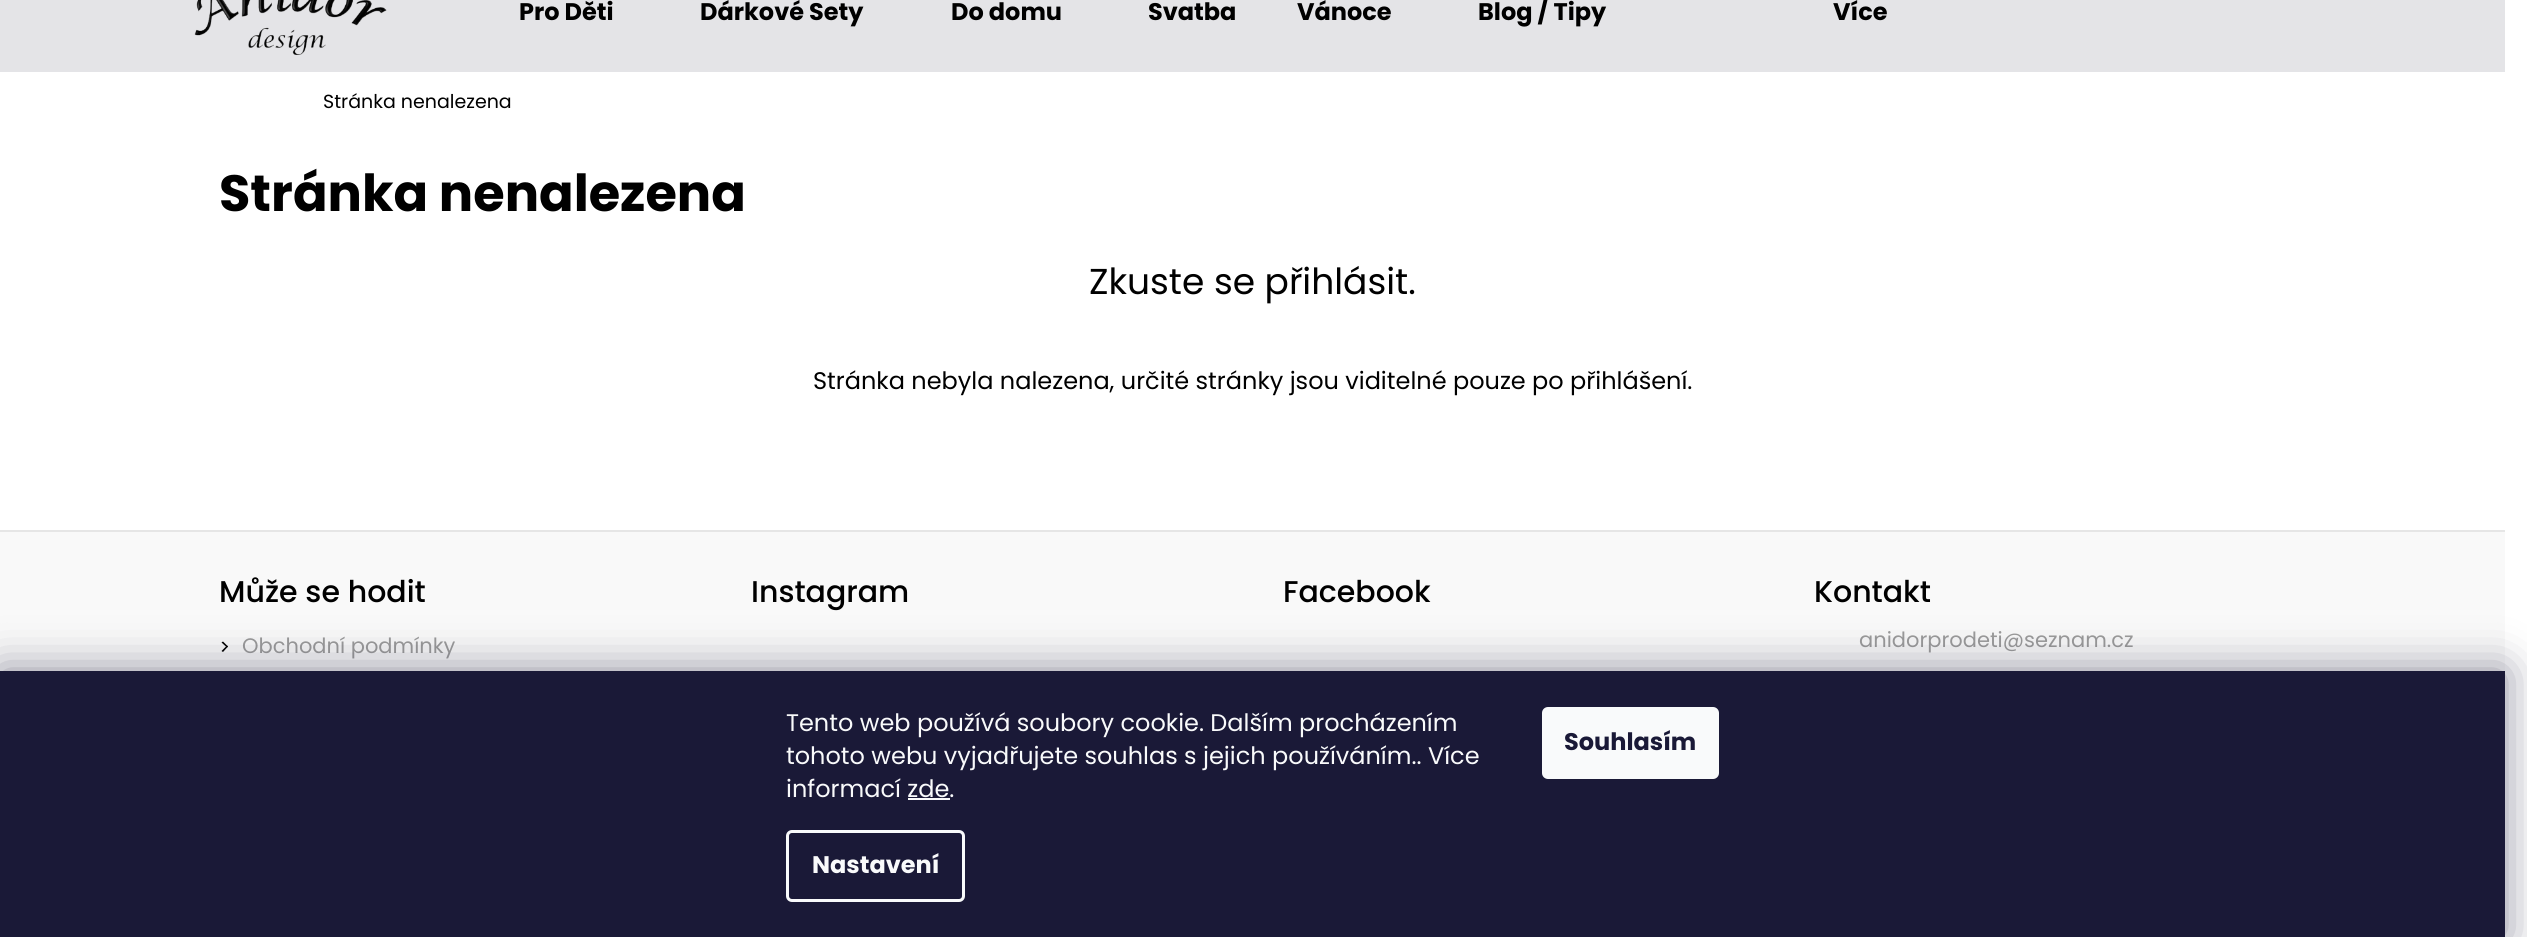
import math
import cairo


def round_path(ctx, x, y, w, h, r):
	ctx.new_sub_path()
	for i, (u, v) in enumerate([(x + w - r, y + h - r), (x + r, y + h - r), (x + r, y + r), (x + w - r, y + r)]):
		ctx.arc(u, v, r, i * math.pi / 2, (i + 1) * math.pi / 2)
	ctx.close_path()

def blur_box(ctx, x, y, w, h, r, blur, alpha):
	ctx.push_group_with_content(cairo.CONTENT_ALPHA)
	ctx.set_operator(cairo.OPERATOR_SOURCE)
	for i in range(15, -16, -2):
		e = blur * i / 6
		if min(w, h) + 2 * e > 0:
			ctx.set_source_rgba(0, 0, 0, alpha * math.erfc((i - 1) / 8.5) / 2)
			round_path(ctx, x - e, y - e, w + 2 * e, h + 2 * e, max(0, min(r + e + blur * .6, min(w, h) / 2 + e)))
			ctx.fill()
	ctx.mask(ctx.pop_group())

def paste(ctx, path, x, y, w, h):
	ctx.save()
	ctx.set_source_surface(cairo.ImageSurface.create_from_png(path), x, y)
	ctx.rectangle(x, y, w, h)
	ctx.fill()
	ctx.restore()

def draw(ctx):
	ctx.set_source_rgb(1, 1, 1)
	ctx.paint()
	ctx.set_source_rgb(0.894, 0.894, 0.906)
	ctx.rectangle(0, 0, 2505, 72)
	ctx.fill()
	paste(ctx, 'media/1.png', 194, 0, 193, 55)
	ctx.select_font_face('Poppins', cairo.FONT_SLANT_NORMAL, cairo.FONT_WEIGHT_BOLD)
	ctx.set_font_size(24)
	ctx.set_source_rgb(0, 0, 0)
	for x, y, s in [
		(519, 20, 'Pro Děti'),
		(700, 20, 'Dárkové Sety'),
		(951, 20, 'Do domu'),
		(1148, 20, 'Svatba'),
		(1297, 20, 'Vánoce'),
		(1478, 20, 'Blog / Tipy'),
		(1833, 20, 'Více'),
	]:
		ctx.move_to(x, y)
		ctx.show_text(s)
	ctx.select_font_face('Poppins')
	ctx.set_font_size(19)
	ctx.move_to(323, 108)
	ctx.show_text('Stránka nenalezena')
	ctx.select_font_face('Poppins', cairo.FONT_SLANT_NORMAL, cairo.FONT_WEIGHT_BOLD)
	ctx.set_font_size(51)
	ctx.move_to(219, 211)
	ctx.show_text('Stránka nenalezena')
	ctx.select_font_face('Poppins')
	ctx.set_font_size(36)
	ctx.move_to(1089, 294)
	ctx.show_text('Zkuste se přihlásit.')
	ctx.set_font_size(24)
	ctx.move_to(813, 389)
	ctx.show_text('Stránka nebyla nalezena, určité stránky jsou viditelné pouze po přihlášení.')
	ctx.set_source_rgb(0.976, 0.976, 0.976)
	ctx.rectangle(0, 532, 2505, 139)
	ctx.fill()
	ctx.set_source_rgb(0.902, 0.902, 0.902)
	ctx.rectangle(0, 530, 2505, 2)
	ctx.fill()
	ctx.select_font_face('Poppins Medium')
	ctx.set_font_size(30)
	ctx.set_source_rgb(0, 0, 0)
	ctx.move_to(219, 602)
	ctx.show_text('Může se hodit')
	ctx.new_path()
	ctx.move_to(221.5, 642.5)
	ctx.line_to(223, 641.5)
	ctx.line_to(228, 646.5)
	ctx.line_to(227, 647.5)
	ctx.close_path()
	ctx.fill()
	ctx.new_path()
	ctx.move_to(221.5, 651)
	ctx.line_to(227, 645.5)
	ctx.line_to(228, 646.5)
	ctx.line_to(223, 652)
	ctx.close_path()
	ctx.fill()
	ctx.select_font_face('Poppins')
	ctx.set_font_size(21)
	ctx.set_source_rgb(0.608, 0.608, 0.608)
	ctx.move_to(242, 653)
	ctx.show_text('Obchodní podmínky')
	ctx.select_font_face('Poppins Medium')
	ctx.set_font_size(30)
	ctx.set_source_rgb(0, 0, 0)
	for x, y, s in [
		(751, 602, 'Instagram'),
		(1283, 602, 'Facebook'),
		(1814, 602, 'Kontakt'),
	]:
		ctx.move_to(x, y)
		ctx.show_text(s)
	ctx.select_font_face('Poppins')
	ctx.set_font_size(21)
	ctx.set_source_rgb(0.608, 0.608, 0.608)
	ctx.move_to(1859, 647)
	ctx.show_text('anidorprodeti@seznam.cz')
	ctx.set_source_rgb(0.106, 0.098, 0.224)
	blur_box(ctx, 0, 671, 2505, 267, 0, 22.5, 0.5)
	ctx.set_source_rgb(0.102, 0.098, 0.216)
	ctx.rectangle(0, 671, 2505, 266)
	ctx.fill()
	ctx.set_font_size(24)
	ctx.set_source_rgb(0.973, 0.98, 0.984)
	for x, y, s in [
		(786, 731, 'Tento web používá soubory cookie. Dalším procházením'),
		(786, 764, 'tohoto webu vyjadřujete souhlas s jejich používáním.. Více'),
		(786, 797, 'informací zde.'),
	]:
		ctx.move_to(x, y)
		ctx.show_text(s)
	ctx.rectangle(908, 798, 42, 2)
	ctx.fill()
	round_path(ctx, 787.5, 831.5, 176, 69, 4.5)
	ctx.set_line_width(3)
	ctx.stroke()
	ctx.select_font_face('Poppins', cairo.FONT_SLANT_NORMAL, cairo.FONT_WEIGHT_BOLD)
	ctx.move_to(812, 873)
	ctx.show_text('Nastavení')
	round_path(ctx, 1542, 707, 177, 72, 6)
	ctx.fill()
	ctx.set_source_rgb(0.102, 0.098, 0.216)
	ctx.move_to(1564, 750)
	ctx.show_text('Souhlasím')


surface = cairo.ImageSurface(cairo.FORMAT_RGB24, 2527, 937)
ctx = cairo.Context(surface)
options = cairo.FontOptions()
options.set_hint_metrics(cairo.HINT_METRICS_OFF)
options.set_hint_style(cairo.HINT_STYLE_NONE)
ctx.set_font_options(options)
ctx.set_miter_limit(4)
draw(ctx)
surface.write_to_png('image.png')
